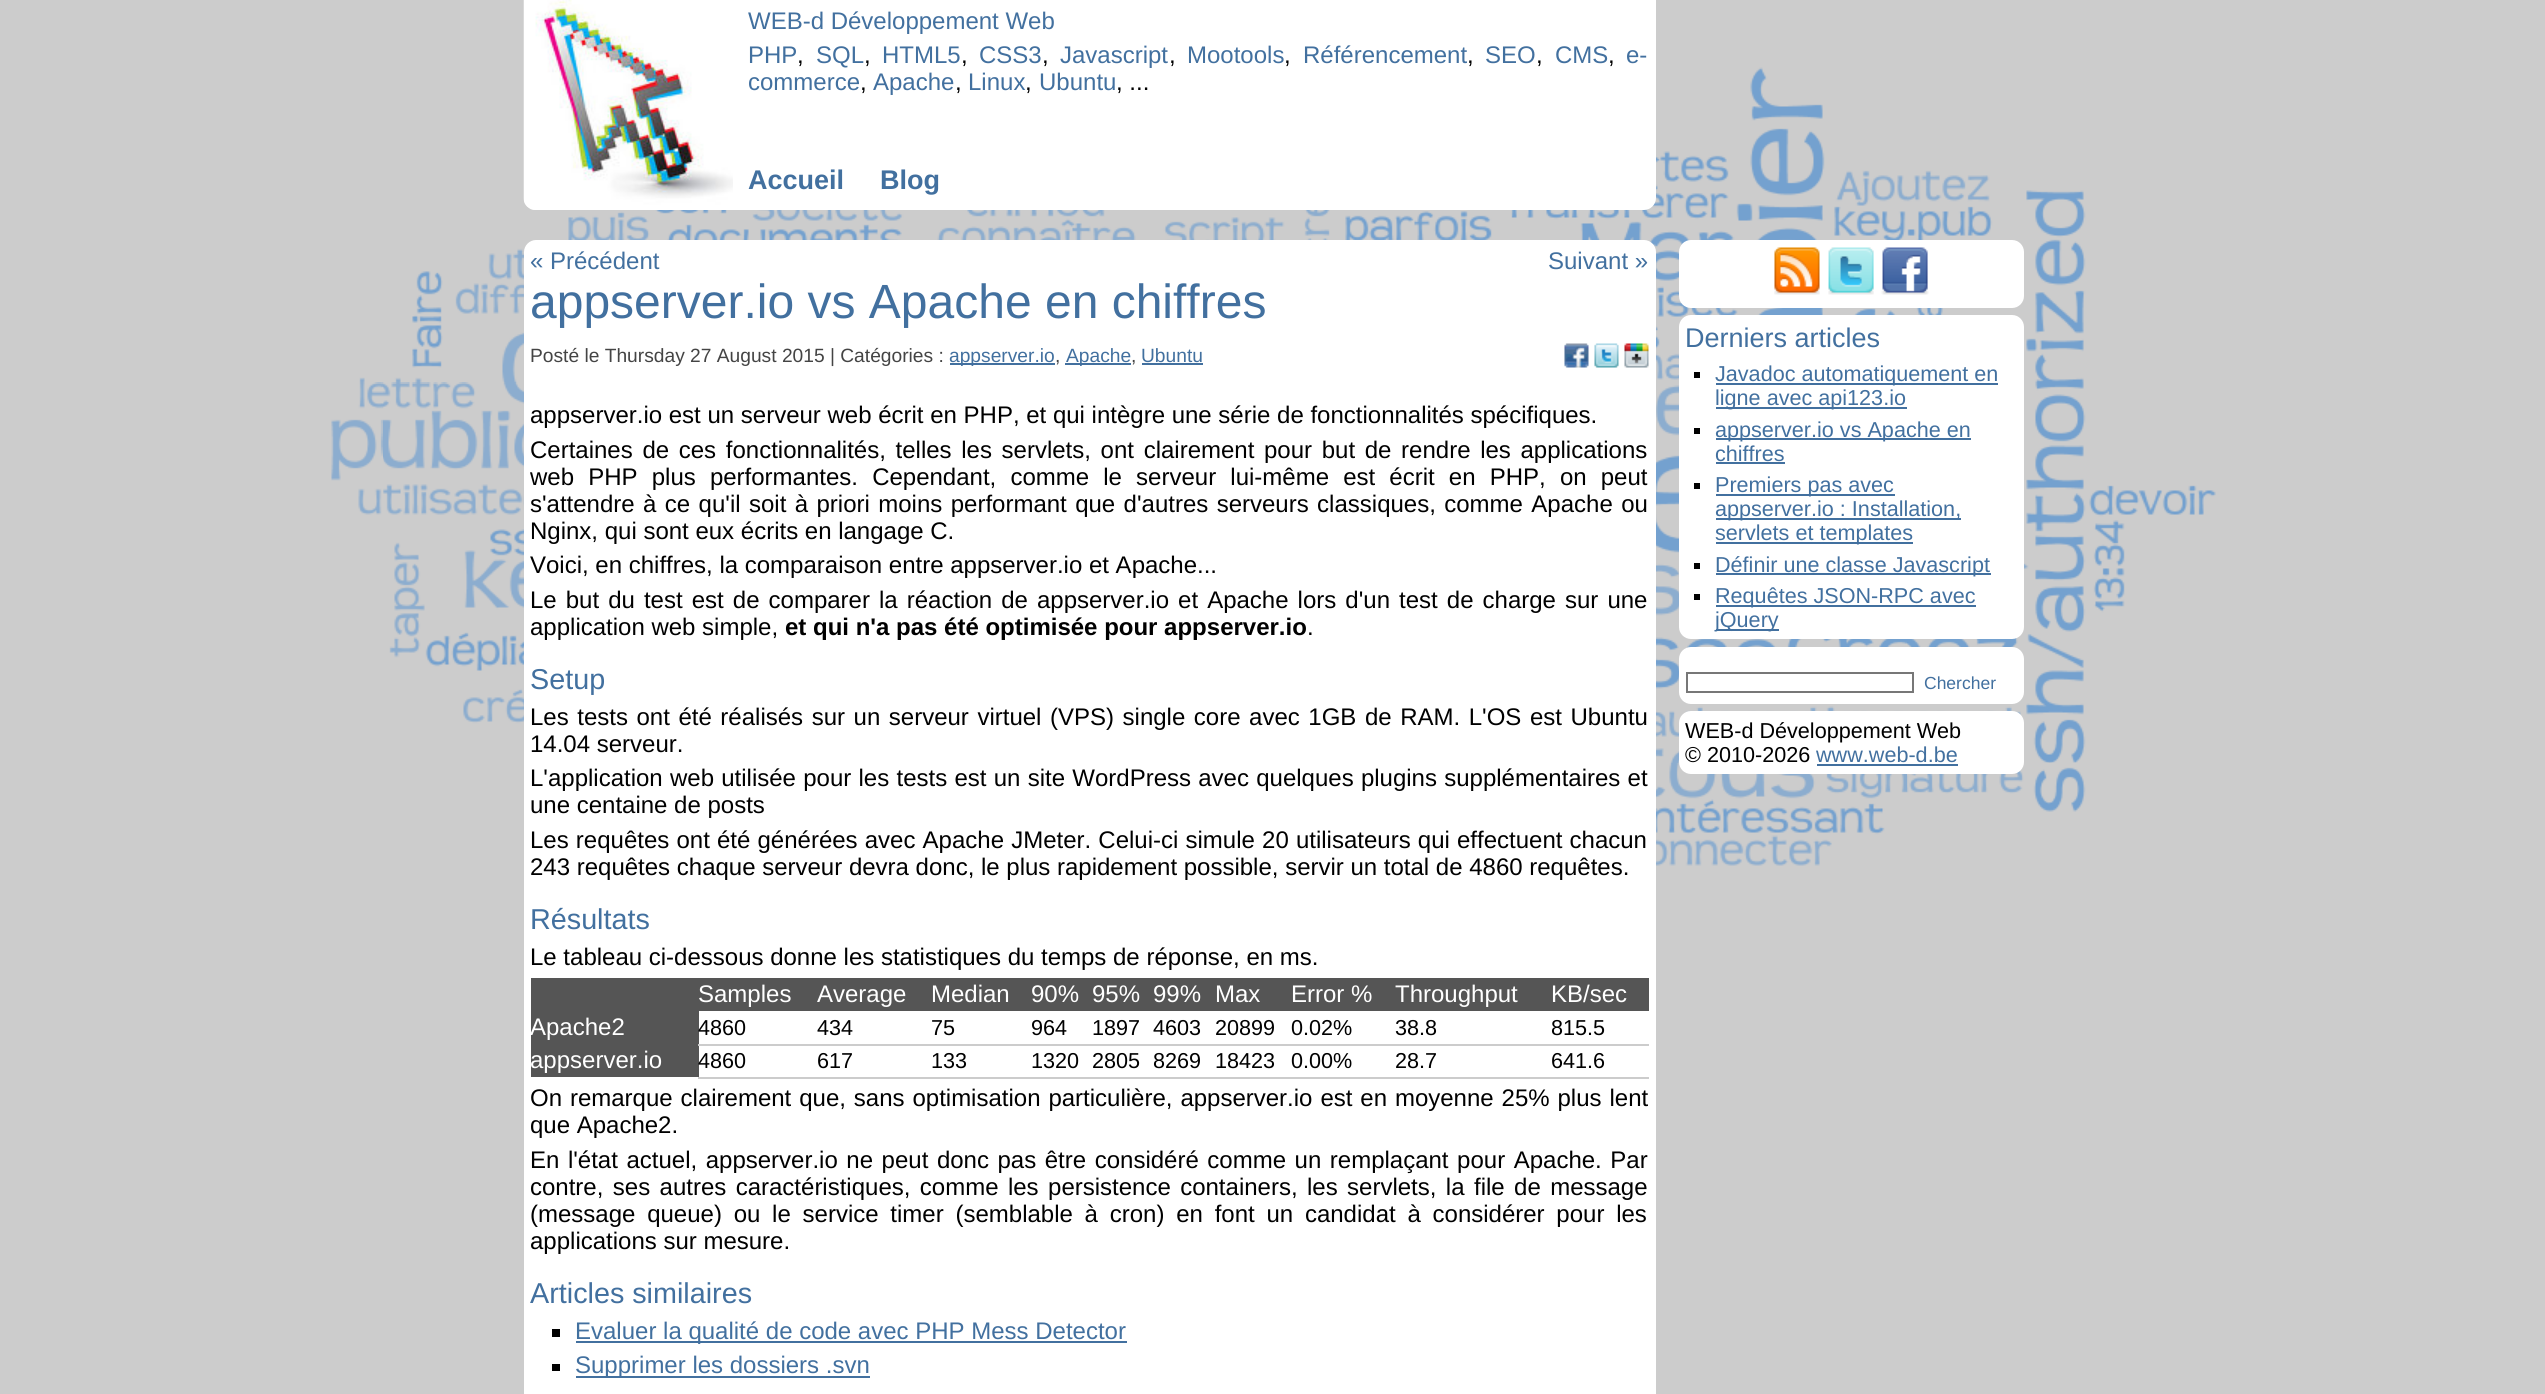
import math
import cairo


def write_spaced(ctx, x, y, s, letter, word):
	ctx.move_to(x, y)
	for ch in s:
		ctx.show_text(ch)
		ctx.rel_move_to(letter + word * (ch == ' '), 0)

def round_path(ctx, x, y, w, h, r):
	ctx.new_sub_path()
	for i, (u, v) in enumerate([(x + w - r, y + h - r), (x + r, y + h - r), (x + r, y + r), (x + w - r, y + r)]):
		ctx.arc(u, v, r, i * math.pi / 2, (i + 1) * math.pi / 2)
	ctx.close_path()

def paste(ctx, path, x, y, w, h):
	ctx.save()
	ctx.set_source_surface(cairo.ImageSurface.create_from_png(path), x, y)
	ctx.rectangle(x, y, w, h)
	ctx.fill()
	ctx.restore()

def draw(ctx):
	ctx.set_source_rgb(0.8, 0.8, 0.8)
	ctx.paint()
	paste(ctx, 'media/1.png', 331, 38, 1885, 849)
	ctx.set_source_rgb(1, 1, 1)
	ctx.new_path()
	ctx.move_to(524, 0)
	ctx.line_to(1656, 0)
	ctx.line_to(1656, 198)
	ctx.curve_to(1656, 204.5, 1650.5, 210, 1644, 210)
	ctx.line_to(536, 210)
	ctx.curve_to(529.5, 210, 524, 204.5, 524, 198)
	ctx.close_path()
	ctx.fill()
	paste(ctx, 'media/2.png', 523, 0, 210, 210)
	ctx.select_font_face('Liberation Sans')
	ctx.set_font_size(24)
	ctx.set_source_rgb(0.259, 0.439, 0.624)
	ctx.move_to(748, 29)
	ctx.show_text('WEB-d Développement Web')
	ctx.move_to(748, 63)
	ctx.show_text('PHP')
	ctx.set_source_rgb(0, 0, 0)
	ctx.move_to(797, 63)
	ctx.show_text(',')
	ctx.set_source_rgb(0.259, 0.439, 0.624)
	ctx.move_to(816, 63)
	ctx.show_text('SQL')
	ctx.set_source_rgb(0, 0, 0)
	ctx.move_to(864, 63)
	ctx.show_text(',')
	ctx.set_source_rgb(0.259, 0.439, 0.624)
	ctx.move_to(882, 63)
	ctx.show_text('HTML5')
	ctx.set_source_rgb(0, 0, 0)
	ctx.move_to(961, 63)
	ctx.show_text(',')
	ctx.set_source_rgb(0.259, 0.439, 0.624)
	ctx.move_to(979, 63)
	ctx.show_text('CSS3')
	ctx.set_source_rgb(0, 0, 0)
	ctx.move_to(1042, 63)
	ctx.show_text(',')
	ctx.set_source_rgb(0.259, 0.439, 0.624)
	ctx.move_to(1060, 63)
	ctx.show_text('Javascript')
	ctx.set_source_rgb(0, 0, 0)
	ctx.move_to(1169, 63)
	ctx.show_text(',')
	ctx.set_source_rgb(0.259, 0.439, 0.624)
	ctx.move_to(1187, 63)
	ctx.show_text('Mootools')
	ctx.set_source_rgb(0, 0, 0)
	ctx.move_to(1284, 63)
	ctx.show_text(',')
	ctx.set_source_rgb(0.259, 0.439, 0.624)
	ctx.move_to(1303, 63)
	ctx.show_text('Référencement')
	ctx.set_source_rgb(0, 0, 0)
	ctx.move_to(1467, 63)
	ctx.show_text(',')
	ctx.set_source_rgb(0.259, 0.439, 0.624)
	ctx.move_to(1485, 63)
	ctx.show_text('SEO')
	ctx.set_source_rgb(0, 0, 0)
	ctx.move_to(1536, 63)
	ctx.show_text(',')
	ctx.set_source_rgb(0.259, 0.439, 0.624)
	ctx.move_to(1555, 63)
	ctx.show_text('CMS')
	ctx.set_source_rgb(0, 0, 0)
	ctx.move_to(1608, 63)
	ctx.show_text(',')
	ctx.set_source_rgb(0.259, 0.439, 0.624)
	ctx.move_to(1626, 63)
	ctx.show_text('e-')
	ctx.move_to(748, 90)
	ctx.show_text('commerce')
	ctx.set_source_rgb(0, 0, 0)
	ctx.move_to(860, 90)
	ctx.show_text(',')
	ctx.set_source_rgb(0.259, 0.439, 0.624)
	ctx.move_to(873, 90)
	ctx.show_text('Apache')
	ctx.set_source_rgb(0, 0, 0)
	ctx.move_to(955, 90)
	ctx.show_text(',')
	ctx.set_source_rgb(0.259, 0.439, 0.624)
	ctx.move_to(968, 90)
	ctx.show_text('Linux')
	ctx.set_source_rgb(0, 0, 0)
	ctx.move_to(1025, 90)
	ctx.show_text(',')
	ctx.set_source_rgb(0.259, 0.439, 0.624)
	ctx.move_to(1039, 90)
	ctx.show_text('Ubuntu')
	ctx.set_source_rgb(0, 0, 0)
	ctx.move_to(1116, 90)
	ctx.show_text(', ...')
	ctx.select_font_face('Liberation Sans', cairo.FONT_SLANT_NORMAL, cairo.FONT_WEIGHT_BOLD)
	ctx.set_font_size(27)
	ctx.set_source_rgb(0.259, 0.439, 0.624)
	ctx.move_to(748, 189)
	ctx.show_text('Accueil')
	ctx.move_to(880, 189)
	ctx.show_text('Blog')
	ctx.set_source_rgb(1, 1, 1)
	ctx.new_path()
	ctx.move_to(536, 240)
	ctx.line_to(1644, 240)
	ctx.curve_to(1650.5, 240, 1656, 245.5, 1656, 252)
	ctx.line_to(1656, 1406)
	ctx.line_to(524, 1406)
	ctx.line_to(524, 252)
	ctx.curve_to(524, 245.5, 529.5, 240, 536, 240)
	ctx.close_path()
	ctx.fill()
	ctx.select_font_face('Liberation Sans')
	ctx.set_font_size(24)
	ctx.set_source_rgb(0.259, 0.439, 0.624)
	ctx.move_to(530, 269)
	ctx.show_text('« Précédent')
	ctx.move_to(1548, 269)
	ctx.show_text('Suivant »')
	ctx.set_font_size(48)
	ctx.move_to(530, 318)
	ctx.show_text('appserver.io vs Apache en chiffres')
	ctx.set_font_size(19.2)
	ctx.set_source_rgb(0.267, 0.267, 0.267)
	ctx.move_to(530, 362)
	ctx.show_text('Posté le Thursday 27 August 2015 | Catégories :')
	ctx.set_source_rgb(0.259, 0.439, 0.624)
	ctx.rectangle(950, 363, 105, 2)
	ctx.fill()
	ctx.move_to(949, 362)
	ctx.show_text('appserver.io')
	ctx.set_source_rgb(0.267, 0.267, 0.267)
	ctx.move_to(1055, 362)
	ctx.show_text(',')
	ctx.set_source_rgb(0.259, 0.439, 0.624)
	ctx.rectangle(1065, 363, 66, 2)
	ctx.fill()
	ctx.move_to(1066, 362)
	ctx.show_text('Apache')
	ctx.set_source_rgb(0.267, 0.267, 0.267)
	ctx.move_to(1131, 362)
	ctx.show_text(',')
	ctx.set_source_rgb(0.259, 0.439, 0.624)
	ctx.move_to(1141, 362)
	ctx.show_text('Ubuntu')
	ctx.rectangle(1142, 363, 61, 2)
	ctx.fill()
	paste(ctx, 'media/3.png', 1564, 343, 25, 25)
	paste(ctx, 'media/4.png', 1594, 343, 25, 25)
	paste(ctx, 'media/5.png', 1624, 343, 25, 25)
	ctx.set_font_size(24)
	ctx.set_source_rgb(0, 0, 0)
	ctx.move_to(530, 423)
	ctx.show_text('appserver.io est un serveur web écrit en PHP, et qui intègre une série de fonctionnalités spécifiques.')
	write_spaced(ctx, 530, 458, 'Certaines de ces fonctionnalités, telles les servlets, ont clairement pour but de rendre les applications', 0, 3)
	write_spaced(ctx, 530, 485, 'web PHP plus performantes. Cependant, comme le serveur lui-même est écrit en PHP, on peut', 0, 7.5)
	write_spaced(ctx, 530, 512, 's\'attendre à ce qu\'il soit à priori moins performant que d\'autres serveurs classiques, comme Apache ou', 0, 1.75)
	ctx.move_to(530, 539)
	ctx.show_text('Nginx, qui sont eux écrits en langage C.')
	ctx.move_to(530, 573)
	ctx.show_text('Voici, en chiffres, la comparaison entre appserver.io et Apache...')
	write_spaced(ctx, 530, 608, 'Le but du test est de comparer la réaction de appserver.io et Apache lors d\'un test de charge sur une', 0, 2.4)
	ctx.move_to(530, 635)
	ctx.show_text('application web simple,')
	ctx.select_font_face('Liberation Sans', cairo.FONT_SLANT_NORMAL, cairo.FONT_WEIGHT_BOLD)
	ctx.move_to(785, 635)
	ctx.show_text('et qui n\'a pas été optimisée pour appserver.io')
	ctx.select_font_face('Liberation Sans')
	ctx.move_to(1307, 635)
	ctx.show_text('.')
	ctx.set_font_size(28.75)
	ctx.set_source_rgb(0.259, 0.439, 0.624)
	ctx.move_to(530, 689)
	ctx.show_text('Setup')
	ctx.set_font_size(24)
	ctx.set_source_rgb(0, 0, 0)
	write_spaced(ctx, 530, 725, 'Les tests ont été réalisés sur un serveur virtuel (VPS) single core avec 1GB de RAM. L\'OS est Ubuntu', 0, 1.9)
	ctx.move_to(530, 752)
	ctx.show_text('14.04 serveur.')
	write_spaced(ctx, 530, 786, 'L\'application web utilisée pour les tests est un site WordPress avec quelques plugins supplémentaires et', 0, 0.6)
	ctx.move_to(530, 813)
	ctx.show_text('une centaine de posts')
	write_spaced(ctx, 530, 848, 'Les requêtes ont été générées avec Apache JMeter. Celui-ci simule 20 utilisateurs qui effectuent chacun', 0, 0.5)
	ctx.move_to(530, 875)
	ctx.show_text('243 requêtes chaque serveur devra donc, le plus rapidement possible, servir un total de 4860 requêtes.')
	ctx.set_font_size(28.75)
	ctx.set_source_rgb(0.259, 0.439, 0.624)
	ctx.move_to(530, 929)
	ctx.show_text('Résultats')
	ctx.set_font_size(24)
	ctx.set_source_rgb(0, 0, 0)
	ctx.move_to(530, 965)
	ctx.show_text('Le tableau ci-dessous donne les statistiques du temps de réponse, en ms.')
	ctx.set_source_rgb(0.333, 0.333, 0.333)
	ctx.rectangle(531, 978, 1118, 33)
	ctx.fill()
	ctx.set_source_rgb(1, 1, 1)
	for x, y, s in [
		(698, 1002, 'Samples'),
		(817, 1002, 'Average'),
		(931, 1002, 'Median'),
		(1031, 1002, '90%'),
		(1092, 1002, '95%'),
		(1153, 1002, '99%'),
		(1215, 1002, 'Max'),
		(1291, 1002, 'Error %'),
		(1395, 1002, 'Throughput'),
		(1551, 1002, 'KB/sec'),
	]:
		ctx.move_to(x, y)
		ctx.show_text(s)
	ctx.set_source_rgb(0.333, 0.333, 0.333)
	ctx.rectangle(531, 1011, 168, 66)
	ctx.fill()
	ctx.set_source_rgb(1, 1, 1)
	ctx.move_to(530, 1035)
	ctx.show_text('Apache2')
	ctx.set_font_size(21.6)
	ctx.set_source_rgb(0, 0, 0)
	for x, y, s in [
		(698, 1035, '4860'),
		(817, 1035, '434'),
		(931, 1035, '75'),
		(1031, 1035, '964'),
		(1092, 1035, '1897'),
		(1153, 1035, '4603'),
		(1215, 1035, '20899'),
		(1291, 1035, '0.02%'),
		(1395, 1035, '38.8'),
	]:
		ctx.move_to(x, y)
		ctx.show_text(s)
	ctx.set_source_rgb(0.8, 0.8, 0.8)
	ctx.rectangle(698, 1044, 951, 2)
	ctx.fill()
	ctx.set_source_rgb(0, 0, 0)
	ctx.move_to(1551, 1035)
	ctx.show_text('815.5')
	ctx.set_font_size(24)
	ctx.set_source_rgb(1, 1, 1)
	ctx.move_to(530, 1068)
	ctx.show_text('appserver.io')
	ctx.set_font_size(21.6)
	ctx.set_source_rgb(0, 0, 0)
	for x, y, s in [
		(698, 1068, '4860'),
		(817, 1068, '617'),
		(931, 1068, '133'),
		(1031, 1068, '1320'),
		(1092, 1068, '2805'),
		(1153, 1068, '8269'),
		(1215, 1068, '18423'),
		(1291, 1068, '0.00%'),
		(1395, 1068, '28.7'),
	]:
		ctx.move_to(x, y)
		ctx.show_text(s)
	ctx.set_source_rgb(0.8, 0.8, 0.8)
	ctx.rectangle(698, 1077, 951, 2)
	ctx.fill()
	ctx.set_source_rgb(0, 0, 0)
	ctx.move_to(1551, 1068)
	ctx.show_text('641.6')
	ctx.set_font_size(24)
	write_spaced(ctx, 530, 1106, 'On remarque clairement que, sans optimisation particulière, appserver.io est en moyenne 25% plus lent', 0, 1.25)
	ctx.move_to(530, 1133)
	ctx.show_text('que Apache2.')
	write_spaced(ctx, 530, 1168, 'En l\'état actuel, appserver.io ne peut donc pas être considéré comme un remplaçant pour Apache. Par', 0, 1.9)
	write_spaced(ctx, 530, 1195, 'contre, ses autres caractéristiques, comme les persistence containers, les servlets, la file de message', 0, 2.75)
	write_spaced(ctx, 530, 1222, '(message queue) ou le service timer (semblable à cron) en font un candidat à considérer pour les', 0, 5.1)
	ctx.move_to(530, 1249)
	ctx.show_text('applications sur mesure.')
	ctx.set_font_size(28.75)
	ctx.set_source_rgb(0.259, 0.439, 0.624)
	ctx.move_to(530, 1303)
	ctx.show_text('Articles similaires')
	ctx.set_source_rgb(0, 0, 0)
	ctx.rectangle(552, 1329, 8, 8)
	ctx.fill()
	ctx.set_source_rgb(0.259, 0.439, 0.624)
	ctx.rectangle(576, 1341, 551, 2)
	ctx.fill()
	ctx.set_font_size(24)
	ctx.move_to(575, 1339)
	ctx.show_text('Evaluer la qualité de code avec PHP Mess Detector')
	ctx.set_source_rgb(0, 0, 0)
	ctx.rectangle(552, 1364, 8, 7)
	ctx.fill()
	ctx.set_source_rgb(0.259, 0.439, 0.624)
	ctx.rectangle(576, 1376, 294, 2)
	ctx.fill()
	ctx.move_to(575, 1373)
	ctx.show_text('Supprimer les dossiers .svn')
	ctx.set_source_rgb(1, 1, 1)
	round_path(ctx, 1679, 240, 345, 68, 12)
	ctx.fill()
	paste(ctx, 'media/6.png', 1774, 247, 46, 48)
	paste(ctx, 'media/7.png', 1828, 247, 46, 48)
	paste(ctx, 'media/8.png', 1881, 247, 48, 48)
	round_path(ctx, 1679, 315, 345, 324, 12)
	ctx.fill()
	ctx.set_font_size(27)
	ctx.set_source_rgb(0.259, 0.439, 0.624)
	ctx.move_to(1685, 347)
	ctx.show_text('Derniers articles')
	ctx.set_source_rgb(0, 0, 0)
	ctx.rectangle(1694, 372, 6, 6)
	ctx.fill()
	ctx.set_source_rgb(0.259, 0.439, 0.624)
	ctx.rectangle(1716, 383, 282, 2)
	ctx.fill()
	ctx.set_font_size(21.6)
	ctx.move_to(1715, 381)
	ctx.show_text('Javadoc automatiquement en')
	ctx.rectangle(1716, 407, 191, 2)
	ctx.fill()
	ctx.move_to(1715, 405)
	ctx.show_text('ligne avec api123.io')
	ctx.set_source_rgb(0, 0, 0)
	ctx.rectangle(1694, 428, 6, 6)
	ctx.fill()
	ctx.set_source_rgb(0.259, 0.439, 0.624)
	ctx.rectangle(1716, 438, 255, 2)
	ctx.fill()
	ctx.move_to(1715, 437)
	ctx.show_text('appserver.io vs Apache en')
	ctx.move_to(1715, 461)
	ctx.show_text('chiffres')
	ctx.rectangle(1716, 462, 69, 2)
	ctx.fill()
	ctx.set_source_rgb(0, 0, 0)
	ctx.rectangle(1694, 483, 6, 6)
	ctx.fill()
	ctx.set_source_rgb(0.259, 0.439, 0.624)
	ctx.rectangle(1716, 494, 179, 2)
	ctx.fill()
	ctx.move_to(1715, 492)
	ctx.show_text('Premiers pas avec')
	ctx.rectangle(1716, 518, 245, 2)
	ctx.fill()
	ctx.move_to(1715, 516)
	ctx.show_text('appserver.io : Installation,')
	ctx.rectangle(1716, 542, 197, 2)
	ctx.fill()
	ctx.move_to(1715, 540)
	ctx.show_text('servlets et templates')
	ctx.set_source_rgb(0, 0, 0)
	ctx.rectangle(1694, 563, 6, 6)
	ctx.fill()
	ctx.set_source_rgb(0.259, 0.439, 0.624)
	ctx.rectangle(1716, 573, 275, 2)
	ctx.fill()
	ctx.move_to(1715, 572)
	ctx.show_text('Définir une classe Javascript')
	ctx.set_source_rgb(0, 0, 0)
	ctx.rectangle(1694, 594, 6, 6)
	ctx.fill()
	ctx.set_source_rgb(0.259, 0.439, 0.624)
	ctx.rectangle(1716, 605, 260, 2)
	ctx.fill()
	ctx.move_to(1715, 603)
	ctx.show_text('Requêtes JSON-RPC avec')
	ctx.rectangle(1716, 629, 63, 2)
	ctx.fill()
	ctx.move_to(1715, 627)
	ctx.show_text('jQuery')
	ctx.set_source_rgb(1, 1, 1)
	round_path(ctx, 1679, 647, 345, 57, 12)
	ctx.fill()
	ctx.rectangle(1687, 673, 226, 19)
	ctx.set_source_rgb(0.467, 0.467, 0.467)
	ctx.stroke()
	ctx.set_font_size(17.5)
	ctx.set_source_rgb(0.259, 0.439, 0.624)
	ctx.move_to(1924, 689)
	ctx.show_text('Chercher')
	ctx.set_source_rgb(1, 1, 1)
	round_path(ctx, 1679, 711, 345, 63, 12)
	ctx.fill()
	ctx.set_font_size(21.6)
	ctx.set_source_rgb(0, 0, 0)
	ctx.move_to(1685, 738)
	ctx.show_text('WEB-d Développement Web')
	ctx.move_to(1685, 762)
	ctx.show_text('© 2010-2026')
	ctx.set_source_rgb(0.259, 0.439, 0.624)
	ctx.move_to(1816, 762)
	ctx.show_text('www.web-d.be')
	ctx.rectangle(1817, 764, 141, 2)
	ctx.fill()


surface = cairo.ImageSurface(cairo.FORMAT_RGB24, 2545, 1394)
ctx = cairo.Context(surface)
options = cairo.FontOptions()
options.set_hint_metrics(cairo.HINT_METRICS_OFF)
options.set_hint_style(cairo.HINT_STYLE_NONE)
ctx.set_font_options(options)
ctx.set_miter_limit(4)
draw(ctx)
surface.write_to_png('image.png')
